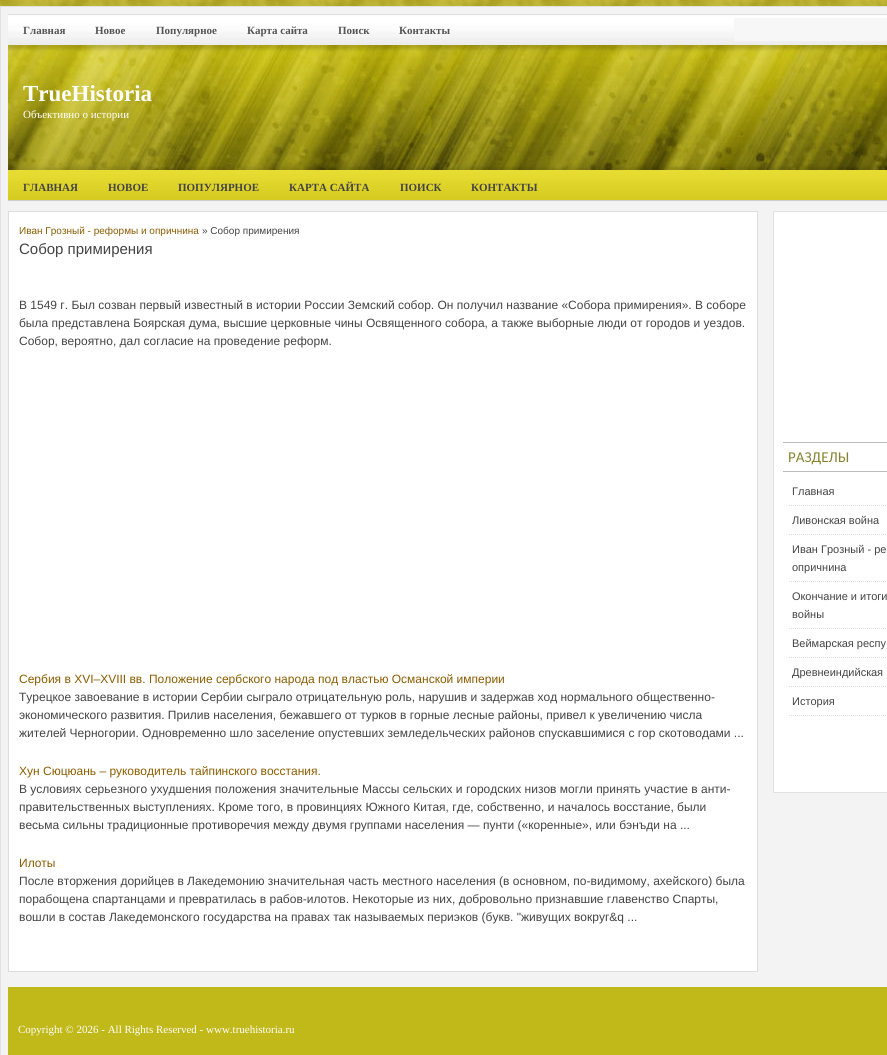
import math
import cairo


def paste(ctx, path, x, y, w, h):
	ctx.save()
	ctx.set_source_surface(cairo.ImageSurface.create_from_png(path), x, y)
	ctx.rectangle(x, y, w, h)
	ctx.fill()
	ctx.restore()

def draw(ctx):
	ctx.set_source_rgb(1, 1, 1)
	ctx.paint()
	paste(ctx, 'media/1.png', 0, 0, 887, 6)
	ctx.set_source_rgb(0.953, 0.953, 0.953)
	ctx.rectangle(0.5, 6.5, 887, 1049)
	ctx.fill_preserve()
	ctx.set_source_rgb(0.882, 0.882, 0.882)
	ctx.set_line_width(1)
	ctx.stroke()
	paste(ctx, 'media/2.png', 8, 15, 879, 30)
	ctx.set_source_rgb(0.867, 0.867, 0.867)
	ctx.rectangle(8, 14, 879, 1)
	ctx.fill()
	ctx.select_font_face('Liberation Serif', cairo.FONT_SLANT_NORMAL, cairo.FONT_WEIGHT_BOLD)
	ctx.set_font_size(11)
	ctx.set_source_rgb(0.333, 0.333, 0.333)
	for x, y, s in [
		(23, 34, 'Главная'),
		(95, 34, 'Новое'),
		(156, 34, 'Популярное'),
		(247, 34, 'Карта сайта'),
		(338, 34, 'Поиск'),
		(399, 34, 'Контакты'),
	]:
		ctx.move_to(x, y)
		ctx.show_text(s)
	ctx.set_source_rgb(0.965, 0.965, 0.965)
	ctx.rectangle(734, 18, 153, 23)
	ctx.fill()
	paste(ctx, 'media/3.png', 8, 45, 879, 125)
	ctx.set_font_size(23)
	ctx.set_source_rgb(1, 1, 1)
	ctx.move_to(23, 101)
	ctx.show_text('TrueHistoria')
	ctx.select_font_face('Liberation Serif')
	ctx.set_font_size(11)
	ctx.move_to(23, 118)
	ctx.show_text('Объективно о истории')
	paste(ctx, 'media/4.png', 8, 170, 879, 30)
	ctx.set_source_rgb(0.8, 0.8, 0.8)
	ctx.rectangle(8, 200, 879, 1)
	ctx.fill()
	ctx.select_font_face('Liberation Serif', cairo.FONT_SLANT_NORMAL, cairo.FONT_WEIGHT_BOLD)
	ctx.set_source_rgb(0.267, 0.267, 0.267)
	for x, y, s in [
		(23, 191, 'ГЛАВНАЯ'),
		(108, 191, 'НОВОЕ'),
		(178, 191, 'ПОПУЛЯРНОЕ'),
		(289, 191, 'КАРТА САЙТА'),
		(400, 191, 'ПОИСК'),
		(471, 191, 'КОНТАКТЫ'),
	]:
		ctx.move_to(x, y)
		ctx.show_text(s)
	ctx.set_source_rgb(1, 1, 1)
	ctx.rectangle(8.5, 211.5, 749, 760)
	ctx.fill_preserve()
	ctx.set_source_rgb(0.867, 0.867, 0.867)
	ctx.stroke()
	ctx.select_font_face('Liberation Sans')
	ctx.set_font_size(10)
	ctx.set_source_rgb(0.545, 0.361, 0)
	ctx.move_to(19, 234)
	ctx.show_text('Иван Грозный - реформы и опричнина')
	ctx.set_source_rgb(0.267, 0.267, 0.267)
	ctx.move_to(202, 234)
	ctx.show_text('» Собор примирения')
	ctx.set_font_size(15)
	ctx.move_to(19, 254)
	ctx.show_text('Собор примирения')
	ctx.set_font_size(12)
	for x, y, s in [
		(19, 309, 'В 1549 г. Был созван первый известный в истории России Земский собор. Он получил название «Собора примирения». В соборе'),
		(19, 327, 'была представлена Боярская дума, высшие церковные чины Освященного собора, а также выборные люди от городов и уездов.'),
		(19, 345, 'Собор, вероятно, дал согласие на проведение реформ.'),
	]:
		ctx.move_to(x, y)
		ctx.show_text(s)
	ctx.set_source_rgb(0.545, 0.361, 0)
	ctx.move_to(19, 683)
	ctx.show_text('Сербия в XVI–XVIII вв. Положение сербского народа под властью Османской империи')
	ctx.set_source_rgb(0.267, 0.267, 0.267)
	for x, y, s in [
		(19, 701, 'Турецкое завоевание в истории Сербии сыграло отрицательную роль, нарушив и задержав ход нормального общественно-'),
		(19, 719, 'экономического развития. Прилив населения, бежавшего от турков в горные лесные районы, привел к увеличению числа'),
		(19, 737, 'жителей Черногории. Одновременно шло заселение опустевших земледельческих районов спускавшимися с гор скотоводами ...'),
	]:
		ctx.move_to(x, y)
		ctx.show_text(s)
	ctx.set_source_rgb(0.545, 0.361, 0)
	ctx.move_to(19, 775)
	ctx.show_text('Хун Сюцюань – руководитель тайпинского восстания.')
	ctx.set_source_rgb(0.267, 0.267, 0.267)
	for x, y, s in [
		(19, 793, 'В условиях серьезного ухудшения положения значительные Массы сельских и городских низов могли принять участие в анти-'),
		(19, 811, 'правительственных выступлениях. Кроме того, в провинциях Южного Китая, где, собственно, и началось восстание, были'),
		(19, 829, 'весьма сильны традиционные противоречия между двумя группами населения — пунти («коренные», или бэнъди на ...'),
	]:
		ctx.move_to(x, y)
		ctx.show_text(s)
	ctx.set_source_rgb(0.545, 0.361, 0)
	ctx.move_to(19, 867)
	ctx.show_text('Илоты')
	ctx.set_source_rgb(0.267, 0.267, 0.267)
	for x, y, s in [
		(19, 885, 'После вторжения дорийцев в Лакедемонию значительная часть местного населения (в основном, по-видимому, ахейского) была'),
		(19, 903, 'порабощена спартанцами и превратилась в рабов-илотов. Некоторые из них, добровольно признавшие главенство Спарты,'),
		(19, 921, 'вошли в состав Лакедемонского государства на правах так называемых периэков (букв. "живущих вокруг&q ...'),
	]:
		ctx.move_to(x, y)
		ctx.show_text(s)
	ctx.set_source_rgb(1, 1, 1)
	ctx.rectangle(773.5, 211.5, 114, 581)
	ctx.fill_preserve()
	ctx.set_source_rgb(0.882, 0.882, 0.882)
	ctx.stroke()
	ctx.set_source_rgb(0.733, 0.733, 0.733)
	ctx.rectangle(783, 442, 104, 1)
	ctx.fill()
	ctx.rectangle(783, 471, 104, 1)
	ctx.fill()
	ctx.select_font_face('Carlito')
	ctx.set_font_size(15)
	ctx.set_source_rgb(0.529, 0.51, 0.196)
	ctx.move_to(788, 462)
	ctx.show_text('РАЗДЕЛЫ')
	ctx.new_path()
	ctx.move_to(789, 505.5)
	ctx.line_to(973, 505.5)
	ctx.set_source_rgb(0.867, 0.867, 0.867)
	ctx.set_dash([1, 1])
	ctx.stroke()
	ctx.select_font_face('Liberation Sans')
	ctx.set_font_size(11)
	ctx.set_source_rgb(0.267, 0.267, 0.267)
	ctx.move_to(792, 495)
	ctx.show_text('Главная')
	ctx.new_path()
	ctx.move_to(789, 534.5)
	ctx.line_to(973, 534.5)
	ctx.set_source_rgb(0.867, 0.867, 0.867)
	ctx.stroke()
	ctx.set_source_rgb(0.267, 0.267, 0.267)
	ctx.move_to(792, 524)
	ctx.show_text('Ливонская война')
	ctx.new_path()
	ctx.move_to(789, 581.5)
	ctx.line_to(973, 581.5)
	ctx.set_source_rgb(0.867, 0.867, 0.867)
	ctx.stroke()
	ctx.set_source_rgb(0.267, 0.267, 0.267)
	ctx.move_to(792, 553)
	ctx.show_text('Иван Грозный - ре')
	ctx.move_to(792, 571)
	ctx.show_text('опричнина')
	ctx.new_path()
	ctx.move_to(789, 628.5)
	ctx.line_to(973, 628.5)
	ctx.set_source_rgb(0.867, 0.867, 0.867)
	ctx.stroke()
	ctx.set_source_rgb(0.267, 0.267, 0.267)
	ctx.move_to(792, 600)
	ctx.show_text('Окончание и итоги')
	ctx.move_to(792, 618)
	ctx.show_text('войны')
	ctx.new_path()
	ctx.move_to(789, 657.5)
	ctx.line_to(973, 657.5)
	ctx.set_source_rgb(0.867, 0.867, 0.867)
	ctx.stroke()
	ctx.set_source_rgb(0.267, 0.267, 0.267)
	ctx.move_to(792, 647)
	ctx.show_text('Веймарская респу')
	ctx.new_path()
	ctx.move_to(789, 686.5)
	ctx.line_to(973, 686.5)
	ctx.set_source_rgb(0.867, 0.867, 0.867)
	ctx.stroke()
	ctx.set_source_rgb(0.267, 0.267, 0.267)
	ctx.move_to(792, 676)
	ctx.show_text('Древнеиндийская')
	ctx.new_path()
	ctx.move_to(789, 715.5)
	ctx.line_to(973, 715.5)
	ctx.set_source_rgb(0.867, 0.867, 0.867)
	ctx.stroke()
	ctx.set_source_rgb(0.267, 0.267, 0.267)
	ctx.move_to(792, 705)
	ctx.show_text('История')
	ctx.set_source_rgb(0.757, 0.722, 0.102)
	ctx.rectangle(8, 987, 879, 68)
	ctx.fill()
	ctx.select_font_face('Liberation Serif')
	ctx.set_source_rgb(1, 1, 1)
	ctx.move_to(18, 1033)
	ctx.show_text('Copyright © 2026 - All Rights Reserved - www.truehistoria.ru')


surface = cairo.ImageSurface(cairo.FORMAT_RGB24, 887, 1055)
ctx = cairo.Context(surface)
options = cairo.FontOptions()
options.set_hint_metrics(cairo.HINT_METRICS_OFF)
options.set_hint_style(cairo.HINT_STYLE_NONE)
ctx.set_font_options(options)
ctx.set_miter_limit(4)
draw(ctx)
surface.write_to_png('image.png')
